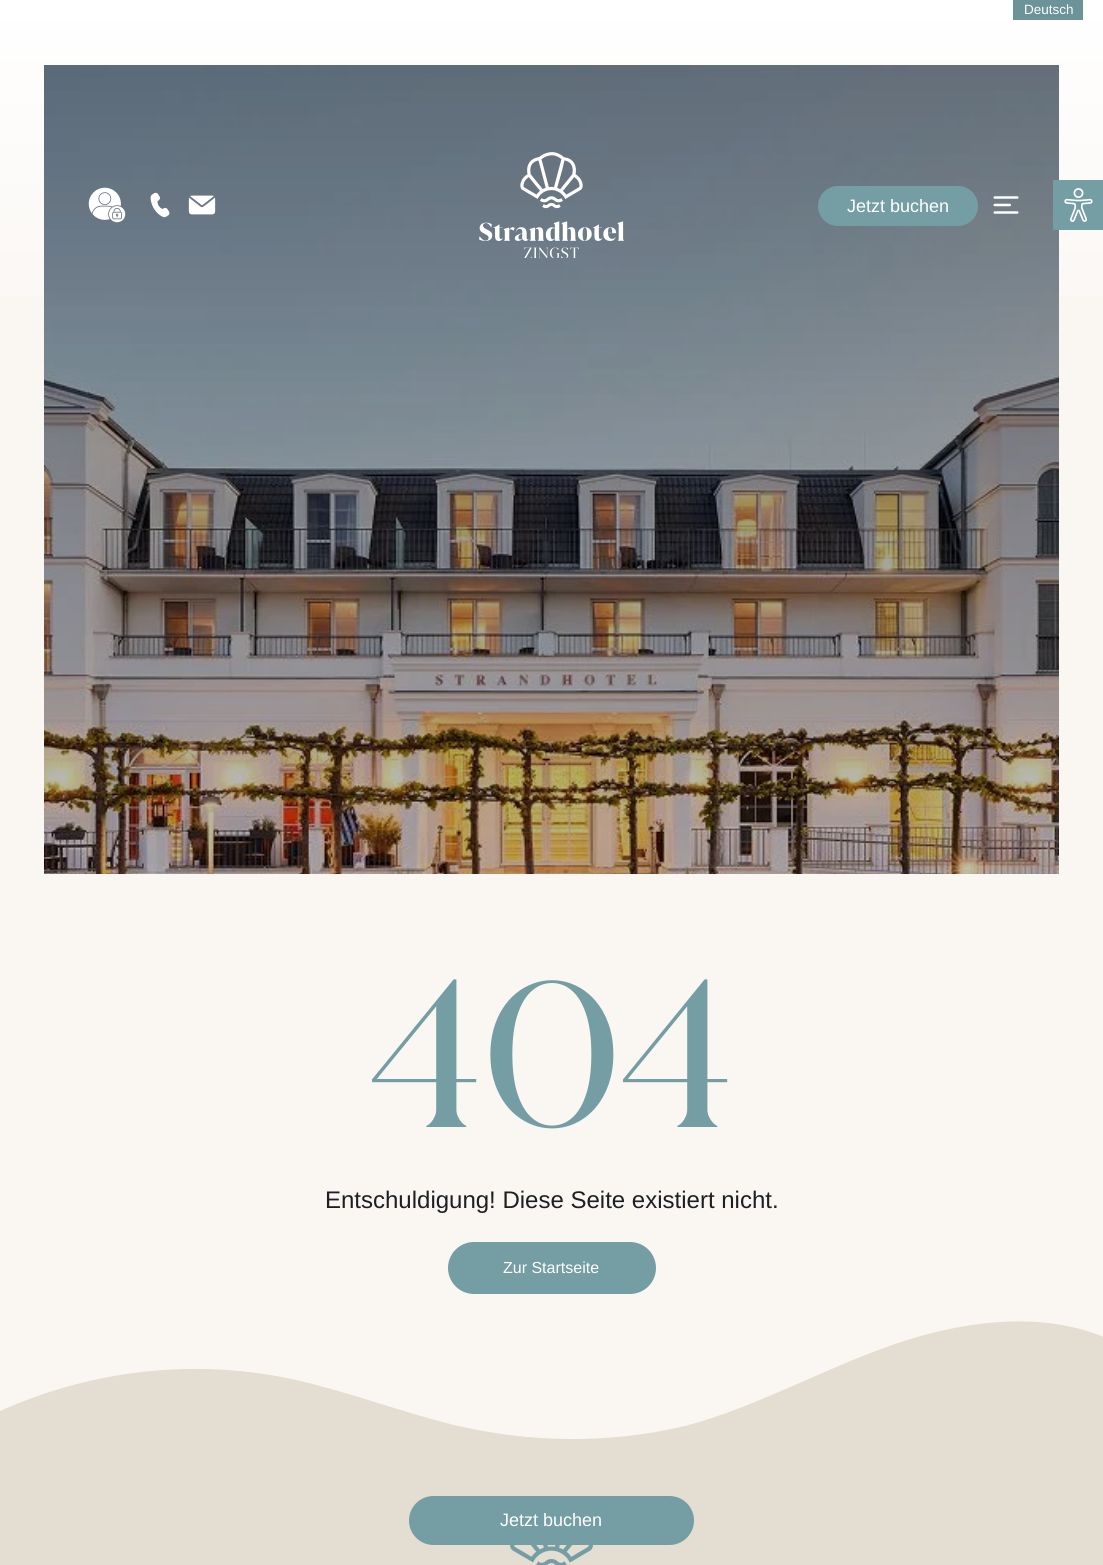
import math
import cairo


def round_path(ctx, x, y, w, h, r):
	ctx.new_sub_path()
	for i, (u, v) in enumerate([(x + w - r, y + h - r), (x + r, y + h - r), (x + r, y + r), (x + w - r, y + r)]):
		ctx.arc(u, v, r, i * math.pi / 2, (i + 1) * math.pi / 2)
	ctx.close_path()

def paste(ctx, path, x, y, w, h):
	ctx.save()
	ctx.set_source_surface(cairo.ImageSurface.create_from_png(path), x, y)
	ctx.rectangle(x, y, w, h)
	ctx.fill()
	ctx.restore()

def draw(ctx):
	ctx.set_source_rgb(0.98, 0.965, 0.949)
	ctx.paint()
	gradient = cairo.LinearGradient(552, 939, 552, 0)
	gradient.add_color_stop_rgba(0.61, 0.98, 0.965, 0.949, 1)
	gradient.add_color_stop_rgba(1, 1, 1, 1, 1)
	ctx.set_source(gradient)
	ctx.rectangle(0, 0, 1103, 296)
	ctx.fill()
	ctx.set_source_rgb(0.42, 0.576, 0.596)
	ctx.rectangle(1013, 0, 70, 20)
	ctx.fill()
	ctx.select_font_face('Liberation Sans')
	ctx.set_font_size(13.5)
	ctx.set_source_rgb(1, 1, 1)
	ctx.move_to(1024, 14)
	ctx.show_text('Deutsch')
	paste(ctx, 'media/6.png', 44, 65, 1015, 809)
	paste(ctx, 'media/1.png', 88, 187, 38, 36)
	paste(ctx, 'media/2.png', 150, 192, 20, 26)
	paste(ctx, 'media/3.png', 188, 195, 28, 20)
	paste(ctx, 'media/4.png', 479, 152, 145, 106)
	ctx.set_source_rgb(0.455, 0.62, 0.639)
	round_path(ctx, 818, 186, 160, 40, 20)
	ctx.fill()
	ctx.set_font_size(18)
	ctx.set_source_rgb(1, 1, 1)
	ctx.move_to(847, 212)
	ctx.show_text('Jetzt buchen')
	paste(ctx, 'media/5.png', 993, 196, 26, 18)
	ctx.select_font_face('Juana')
	ctx.set_font_size(200)
	ctx.set_source_rgb(0.455, 0.62, 0.639)
	ctx.move_to(372, 1127)
	ctx.show_text('404')
	ctx.select_font_face('Liberation Sans')
	ctx.set_font_size(24)
	ctx.set_source_rgb(0.114, 0.122, 0.137)
	ctx.move_to(325, 1208)
	ctx.show_text('Entschuldigung! Diese Seite existiert nicht.')
	ctx.set_source_rgb(0.455, 0.62, 0.639)
	round_path(ctx, 448, 1242, 208, 52, 26)
	ctx.fill()
	ctx.set_font_size(16)
	ctx.set_source_rgb(1, 1, 1)
	ctx.move_to(503, 1273)
	ctx.show_text('Zur Startseite')
	ctx.set_source_rgb(0.89, 0.867, 0.824)
	ctx.new_path()
	ctx.move_to(296, 1380)
	ctx.curve_to(349, 1392, 401, 1412, 454, 1425)
	ctx.curve_to(530, 1443, 609, 1444, 685, 1426)
	ctx.curve_to(758, 1407, 834, 1363, 907, 1340)
	ctx.curve_to(972, 1320, 1042, 1312, 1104, 1337)
	ctx.line_to(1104, 1441)
	ctx.line_to(0, 1441)
	ctx.line_to(0, 1411)
	ctx.curve_to(94, 1369, 197, 1358, 296, 1380)
	ctx.close_path()
	ctx.fill()
	ctx.rectangle(0, 1441, 1103, 124)
	ctx.fill()
	paste(ctx, 'media/7.png', 510, 1545, 83, 20)
	ctx.set_source_rgb(0.455, 0.62, 0.639)
	ctx.rectangle(1053, 180, 50, 50)
	ctx.fill()
	paste(ctx, 'media/8.png', 1064, 188, 29, 34)
	round_path(ctx, 409, 1496, 285, 49, 24.5)
	ctx.fill()
	ctx.set_font_size(18)
	ctx.set_source_rgb(1, 1, 1)
	ctx.move_to(500, 1526)
	ctx.show_text('Jetzt buchen')


surface = cairo.ImageSurface(cairo.FORMAT_RGB24, 1103, 1565)
ctx = cairo.Context(surface)
options = cairo.FontOptions()
options.set_hint_metrics(cairo.HINT_METRICS_OFF)
options.set_hint_style(cairo.HINT_STYLE_NONE)
ctx.set_font_options(options)
ctx.set_miter_limit(4)
draw(ctx)
surface.write_to_png('image.png')
